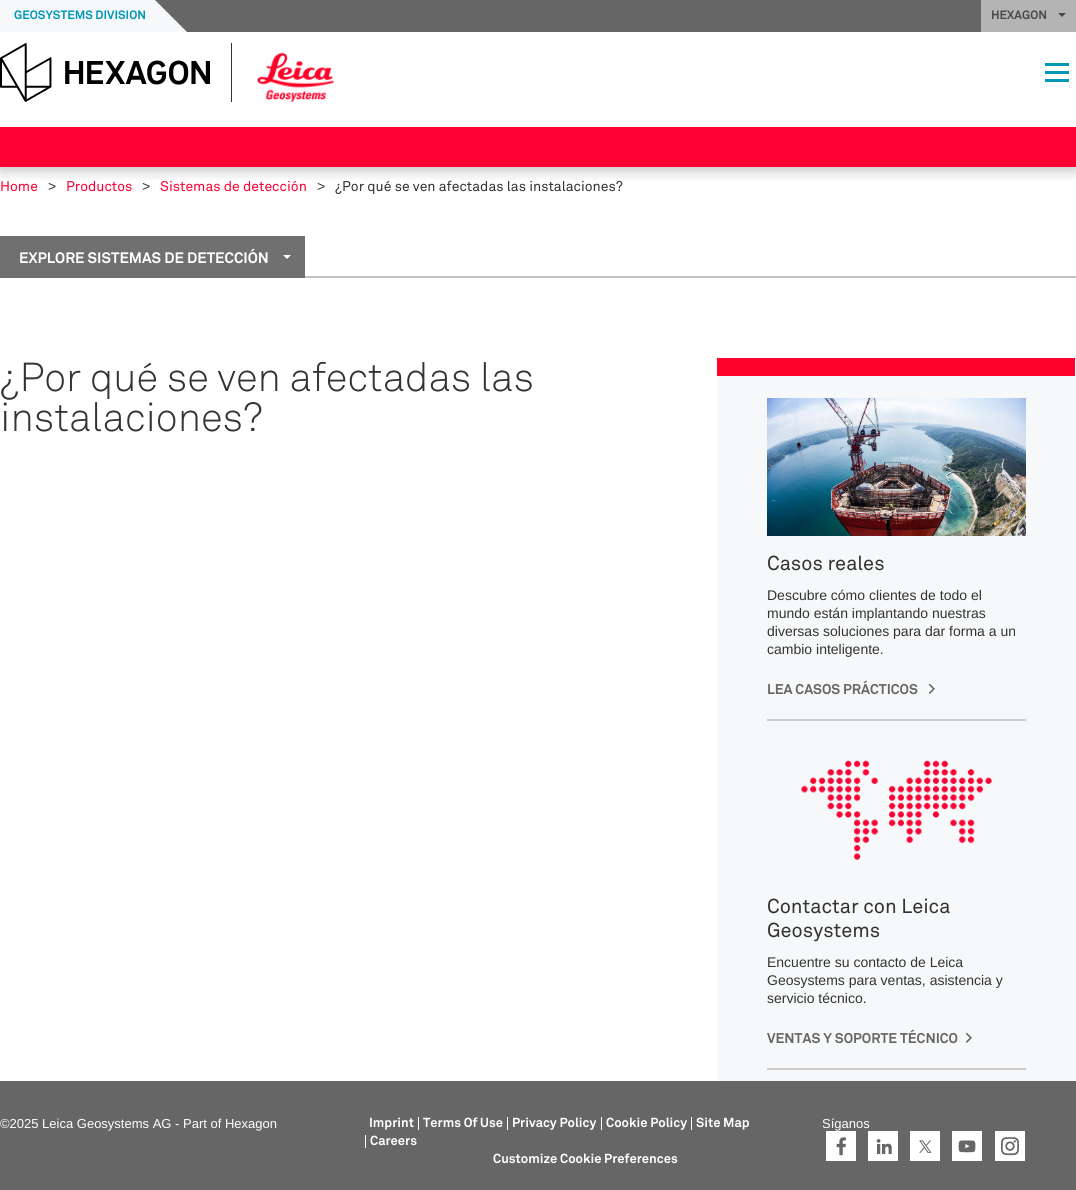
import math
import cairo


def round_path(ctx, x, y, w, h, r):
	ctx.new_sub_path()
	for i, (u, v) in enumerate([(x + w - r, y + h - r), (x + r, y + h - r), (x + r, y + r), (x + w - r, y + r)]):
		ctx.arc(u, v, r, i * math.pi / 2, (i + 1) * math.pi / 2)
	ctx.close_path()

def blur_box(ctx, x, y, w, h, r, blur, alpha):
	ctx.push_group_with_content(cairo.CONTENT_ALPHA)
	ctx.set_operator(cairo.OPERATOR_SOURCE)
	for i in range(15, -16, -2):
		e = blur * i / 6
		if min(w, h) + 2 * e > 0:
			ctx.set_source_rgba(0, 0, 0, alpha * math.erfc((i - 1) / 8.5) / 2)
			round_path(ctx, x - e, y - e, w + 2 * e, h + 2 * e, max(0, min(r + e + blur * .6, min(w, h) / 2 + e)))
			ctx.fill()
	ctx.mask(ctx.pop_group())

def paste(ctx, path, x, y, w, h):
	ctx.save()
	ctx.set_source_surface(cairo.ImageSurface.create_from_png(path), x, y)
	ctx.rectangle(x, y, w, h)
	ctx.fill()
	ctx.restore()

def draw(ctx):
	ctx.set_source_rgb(1, 1, 1)
	ctx.paint()
	ctx.save()
	ctx.rectangle(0, 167, 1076, 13)
	ctx.clip()
	ctx.set_source_rgb(0, 0, 0)
	blur_box(ctx, 0, 2, 1076, 167, 0, 7.5, 0.3)
	ctx.restore()
	ctx.set_source_rgb(0.4, 0.4, 0.4)
	ctx.rectangle(155, 0, 826, 32)
	ctx.fill()
	ctx.set_source_rgb(0.961, 0.969, 0.973)
	ctx.rectangle(0, 0, 155, 32)
	ctx.fill()
	ctx.select_font_face('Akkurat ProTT', cairo.FONT_SLANT_NORMAL, cairo.FONT_WEIGHT_BOLD)
	ctx.set_font_size(12)
	ctx.set_source_rgb(0, 0.592, 0.729)
	ctx.move_to(14, 19)
	ctx.show_text('GEOSYSTEMS DIVISION')
	ctx.set_source_rgb(0.961, 0.969, 0.973)
	ctx.new_path()
	ctx.move_to(187, 32)
	ctx.line_to(155, 32)
	ctx.line_to(155, 0)
	ctx.close_path()
	ctx.fill()
	ctx.set_source_rgb(0.706, 0.706, 0.706)
	ctx.rectangle(981, 0, 95, 32)
	ctx.fill()
	ctx.set_source_rgb(0.29, 0.29, 0.29)
	ctx.move_to(991, 19)
	ctx.show_text('HEXAGON')
	ctx.new_path()
	ctx.move_to(1058, 13)
	ctx.line_to(1066, 13)
	ctx.line_to(1062, 17)
	ctx.close_path()
	ctx.fill()
	ctx.set_source_rgb(0.2, 0.2, 0.2)
	ctx.rectangle(231, 43, 1, 59)
	ctx.fill()
	paste(ctx, 'media/1.png', 0, 43, 210, 59)
	paste(ctx, 'media/2.png', 257, 52, 77, 50)
	ctx.set_source_rgb(0, 0.592, 0.729)
	ctx.rectangle(1045, 63, 24, 3)
	ctx.rectangle(1045, 71, 24, 3)
	ctx.rectangle(1045, 79, 24, 3)
	ctx.fill()
	ctx.set_source_rgb(1, 0, 0.2)
	ctx.rectangle(0, 127, 1076, 40)
	ctx.fill()
	ctx.select_font_face('Akkurat ProTT')
	ctx.set_font_size(14)
	ctx.move_to(0, 191)
	ctx.show_text('Home')
	ctx.select_font_face('Liberation Sans')
	ctx.set_source_rgb(0.2, 0.2, 0.2)
	ctx.move_to(48, 191)
	ctx.show_text('>')
	ctx.select_font_face('Akkurat ProTT')
	ctx.set_source_rgb(1, 0, 0.2)
	ctx.move_to(66, 191)
	ctx.show_text('Productos')
	ctx.select_font_face('Liberation Sans')
	ctx.set_source_rgb(0.2, 0.2, 0.2)
	ctx.move_to(142, 191)
	ctx.show_text('>')
	ctx.select_font_face('Akkurat ProTT')
	ctx.set_source_rgb(1, 0, 0.2)
	ctx.move_to(160, 191)
	ctx.show_text('Sistemas de detección')
	ctx.select_font_face('Liberation Sans')
	ctx.set_source_rgb(0.2, 0.2, 0.2)
	ctx.move_to(317, 191)
	ctx.show_text('>')
	ctx.select_font_face('Akkurat ProTT')
	ctx.move_to(335, 191)
	ctx.show_text('¿Por qué se ven afectadas las instalaciones?')
	ctx.set_source_rgb(0.439, 0.439, 0.439)
	ctx.rectangle(0, 236, 305, 42)
	ctx.fill()
	ctx.select_font_face('Akkurat ProTT', cairo.FONT_SLANT_NORMAL, cairo.FONT_WEIGHT_BOLD)
	ctx.set_font_size(15)
	ctx.set_source_rgb(1, 1, 1)
	ctx.move_to(19, 263)
	ctx.show_text('EXPLORE SISTEMAS DE DETECCIÓN')
	ctx.new_path()
	ctx.move_to(283, 255)
	ctx.line_to(291, 255)
	ctx.line_to(287, 259)
	ctx.close_path()
	ctx.fill()
	ctx.set_source_rgb(0.757, 0.757, 0.757)
	ctx.rectangle(305, 276, 771, 2)
	ctx.fill()
	ctx.select_font_face('Akkurat ProTT Light')
	ctx.set_font_size(40)
	ctx.set_source_rgb(0.2, 0.2, 0.2)
	ctx.move_to(0, 391)
	ctx.show_text('¿Por qué se ven afectadas las')
	ctx.move_to(0, 431)
	ctx.show_text('instalaciones?')
	ctx.set_source_rgb(0.961, 0.969, 0.973)
	ctx.rectangle(717, 358, 359, 723)
	ctx.fill()
	ctx.set_source_rgb(1, 0.004, 0.161)
	ctx.rectangle(717, 358, 358, 18)
	ctx.fill()
	ctx.set_source_rgb(0.8, 0.8, 0.8)
	ctx.rectangle(767, 719, 259, 2)
	ctx.fill()
	paste(ctx, 'media/3.png', 767, 398, 259, 138)
	ctx.select_font_face('Akkurat ProTT')
	ctx.set_font_size(20)
	ctx.set_source_rgb(0.2, 0.2, 0.2)
	ctx.move_to(767, 570)
	ctx.show_text('Casos reales')
	ctx.select_font_face('Liberation Sans')
	ctx.set_font_size(14)
	for x, y, s in [
		(767, 600, 'Descubre cómo clientes de todo el'),
		(767, 618, 'mundo están implantando nuestras'),
		(767, 636, 'diversas soluciones para dar forma a un'),
		(767, 654, 'cambio inteligente.'),
	]:
		ctx.move_to(x, y)
		ctx.show_text(s)
	ctx.select_font_face('Akkurat ProTT', cairo.FONT_SLANT_NORMAL, cairo.FONT_WEIGHT_BOLD)
	ctx.set_source_rgb(0.4, 0.4, 0.4)
	ctx.move_to(767, 694)
	ctx.show_text('LEA CASOS PRÁCTICOS')
	ctx.set_font_size(16)
	ctx.move_to(928, 694)
	ctx.show_text('>')
	ctx.set_source_rgb(0.8, 0.8, 0.8)
	ctx.rectangle(767, 1068, 259, 2)
	ctx.fill()
	paste(ctx, 'media/4.png', 801, 760, 191, 100)
	ctx.select_font_face('Akkurat ProTT')
	ctx.set_font_size(20)
	ctx.set_source_rgb(0.2, 0.2, 0.2)
	ctx.move_to(767, 913)
	ctx.show_text('Contactar con Leica')
	ctx.move_to(767, 937)
	ctx.show_text('Geosystems')
	ctx.select_font_face('Liberation Sans')
	ctx.set_font_size(14)
	for x, y, s in [
		(767, 967, 'Encuentre su contacto de Leica'),
		(767, 985, 'Geosystems para ventas, asistencia y'),
		(767, 1003, 'servicio técnico.'),
	]:
		ctx.move_to(x, y)
		ctx.show_text(s)
	ctx.select_font_face('Akkurat ProTT', cairo.FONT_SLANT_NORMAL, cairo.FONT_WEIGHT_BOLD)
	ctx.set_source_rgb(0.4, 0.4, 0.4)
	ctx.move_to(767, 1043)
	ctx.show_text('VENTAS Y SOPORTE TÉCNICO')
	ctx.set_font_size(16)
	ctx.move_to(965, 1043)
	ctx.show_text('>')
	ctx.rectangle(0, 1081, 1076, 109)
	ctx.fill()
	ctx.select_font_face('Liberation Sans')
	ctx.set_font_size(13)
	ctx.set_source_rgb(1, 1, 1)
	ctx.move_to(0, 1128)
	ctx.show_text('©2025 Leica Geosystems AG - Part of Hexagon')
	ctx.select_font_face('Akkurat ProTT', cairo.FONT_SLANT_NORMAL, cairo.FONT_WEIGHT_BOLD)
	ctx.move_to(369, 1127)
	ctx.show_text('Imprint')
	ctx.rectangle(418, 1117, 1, 13)
	ctx.fill()
	ctx.move_to(423, 1127)
	ctx.show_text('Terms Of Use')
	ctx.rectangle(507, 1117, 1, 13)
	ctx.fill()
	ctx.move_to(512, 1127)
	ctx.show_text('Privacy Policy')
	ctx.rectangle(601, 1117, 1, 13)
	ctx.fill()
	ctx.move_to(606, 1127)
	ctx.show_text('Cookie Policy')
	ctx.rectangle(691, 1117, 1, 13)
	ctx.fill()
	ctx.move_to(696, 1127)
	ctx.show_text('Site Map')
	ctx.rectangle(365, 1135, 1, 13)
	ctx.fill()
	ctx.move_to(370, 1145)
	ctx.show_text('Careers')
	ctx.move_to(493, 1163)
	ctx.show_text('Customize Cookie Preferences')
	ctx.select_font_face('Liberation Sans')
	ctx.move_to(822, 1128)
	ctx.show_text('Síganos')
	paste(ctx, 'media/5.png', 826, 1131, 30, 30)
	paste(ctx, 'media/6.png', 868, 1131, 30, 30)
	paste(ctx, 'media/7.png', 910, 1131, 30, 30)
	paste(ctx, 'media/8.png', 952, 1131, 30, 30)
	paste(ctx, 'media/9.png', 995, 1131, 30, 30)


surface = cairo.ImageSurface(cairo.FORMAT_RGB24, 1076, 1190)
ctx = cairo.Context(surface)
options = cairo.FontOptions()
options.set_hint_metrics(cairo.HINT_METRICS_OFF)
options.set_hint_style(cairo.HINT_STYLE_NONE)
ctx.set_font_options(options)
ctx.set_miter_limit(4)
draw(ctx)
surface.write_to_png('image.png')
